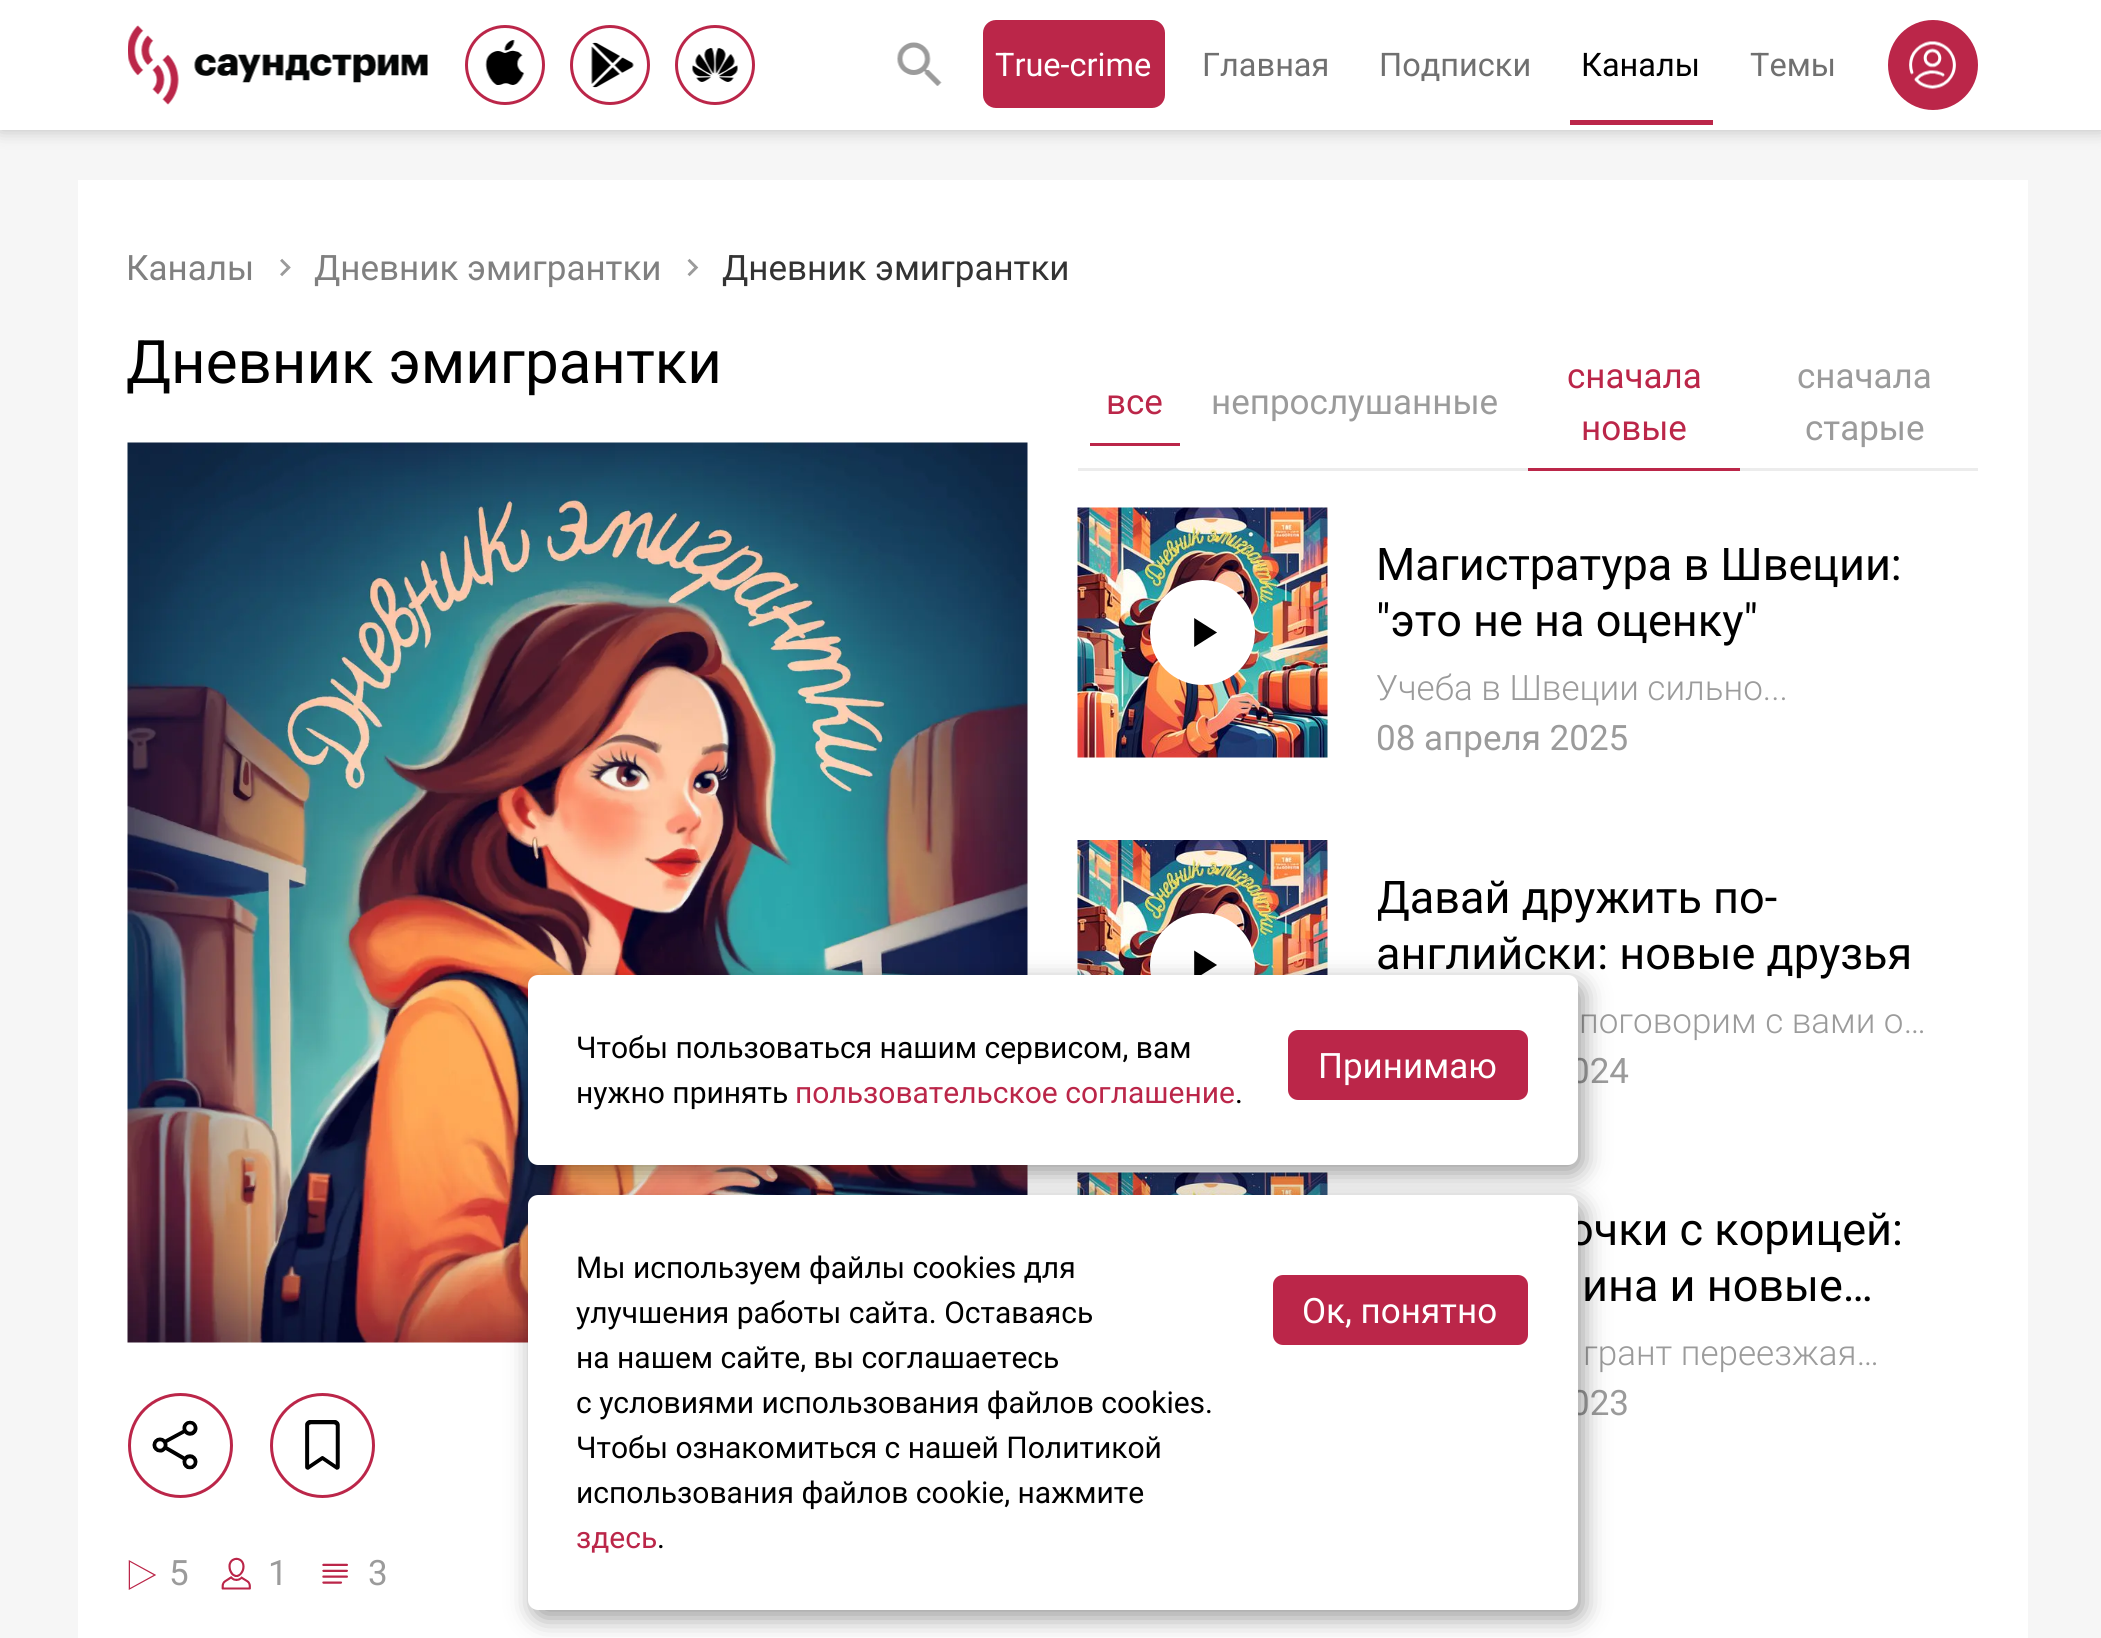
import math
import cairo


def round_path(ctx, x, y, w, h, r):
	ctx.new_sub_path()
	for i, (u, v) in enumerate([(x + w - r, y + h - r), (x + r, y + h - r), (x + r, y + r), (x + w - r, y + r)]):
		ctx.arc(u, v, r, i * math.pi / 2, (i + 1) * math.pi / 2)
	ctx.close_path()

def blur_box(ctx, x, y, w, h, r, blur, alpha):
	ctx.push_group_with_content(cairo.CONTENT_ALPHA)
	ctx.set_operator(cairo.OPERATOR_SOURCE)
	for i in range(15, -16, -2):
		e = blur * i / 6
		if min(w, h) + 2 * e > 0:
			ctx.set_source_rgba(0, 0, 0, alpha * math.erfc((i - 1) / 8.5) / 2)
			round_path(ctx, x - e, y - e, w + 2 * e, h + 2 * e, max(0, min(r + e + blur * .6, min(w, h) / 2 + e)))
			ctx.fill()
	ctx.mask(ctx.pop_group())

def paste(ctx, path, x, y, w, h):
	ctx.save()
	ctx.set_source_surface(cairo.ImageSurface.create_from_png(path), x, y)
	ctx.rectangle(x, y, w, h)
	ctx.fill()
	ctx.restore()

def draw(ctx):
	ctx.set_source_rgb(0.961, 0.961, 0.961)
	ctx.paint()
	ctx.set_source_rgb(0, 0, 0)
	blur_box(ctx, 0, 0, 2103, 130, 0, 9, 0.24)
	ctx.set_source_rgb(1, 1, 1)
	ctx.rectangle(0, 0, 2101, 130)
	ctx.fill()
	paste(ctx, 'media/1.png', 128, 25, 300, 80)
	ctx.arc(505, 65, 38.5, 0, 2 * math.pi)
	ctx.set_source_rgb(0.733, 0.149, 0.286)
	ctx.set_line_width(3)
	ctx.stroke()
	paste(ctx, 'media/2.png', 485, 40, 40, 45)
	ctx.arc(610, 65, 38.5, 0, 2 * math.pi)
	ctx.stroke()
	paste(ctx, 'media/3.png', 591, 42, 43, 46)
	ctx.arc(715, 65, 38.5, 0, 2 * math.pi)
	ctx.stroke()
	paste(ctx, 'media/4.png', 692, 48, 46, 34)
	paste(ctx, 'media/5.png', 897, 42, 45, 44)
	round_path(ctx, 983, 20, 182, 88, 13)
	ctx.fill()
	ctx.select_font_face('Roboto')
	ctx.set_font_size(32.5)
	ctx.set_source_rgb(1, 1, 1)
	ctx.move_to(995, 76)
	ctx.show_text('True-crime')
	ctx.set_source_rgb(0.439, 0.439, 0.439)
	ctx.move_to(1202, 76)
	ctx.show_text('Главная')
	ctx.move_to(1379, 76)
	ctx.show_text('Подписки')
	ctx.set_source_rgb(0, 0, 0)
	ctx.move_to(1581, 76)
	ctx.show_text('Каналы')
	ctx.set_source_rgb(0.733, 0.149, 0.286)
	ctx.rectangle(1570, 120, 143, 5)
	ctx.fill()
	ctx.set_source_rgb(0.439, 0.439, 0.439)
	ctx.move_to(1750, 76)
	ctx.show_text('Темы')
	ctx.set_source_rgb(0.733, 0.149, 0.286)
	ctx.new_path()
	ctx.arc(1933, 65, 43.5, 0, 2 * math.pi)
	ctx.fill_preserve()
	ctx.stroke()
	paste(ctx, 'media/6.png', 1909, 41, 47, 48)
	ctx.set_source_rgb(1, 1, 1)
	ctx.rectangle(78, 180, 1950, 1458)
	ctx.fill()
	ctx.set_font_size(35)
	ctx.set_source_rgb(0.502, 0.502, 0.502)
	ctx.move_to(126, 280)
	ctx.show_text('Каналы')
	paste(ctx, 'media/7.png', 280, 258, 11, 19)
	ctx.move_to(314, 280)
	ctx.show_text('Дневник эмигрантки')
	paste(ctx, 'media/8.png', 687, 258, 12, 19)
	ctx.set_source_rgb(0.2, 0.2, 0.2)
	ctx.move_to(722, 280)
	ctx.show_text('Дневник эмигрантки')
	ctx.set_font_size(60)
	ctx.set_source_rgb(0, 0, 0)
	ctx.move_to(126, 383)
	ctx.show_text('Дневник эмигрантки')
	paste(ctx, 'media/9.png', 127, 442, 901, 901)
	ctx.arc(180.5, 1445.5, 51, 0, 2 * math.pi)
	ctx.set_source_rgb(0.733, 0.149, 0.286)
	ctx.stroke()
	paste(ctx, 'media/10.png', 152, 1420, 46, 50)
	ctx.arc(322.5, 1445.5, 51, 0, 2 * math.pi)
	ctx.stroke()
	paste(ctx, 'media/11.png', 305, 1420, 35, 50)
	paste(ctx, 'media/12.png', 128, 1560, 28, 30)
	ctx.set_font_size(35)
	ctx.set_source_rgb(0.608, 0.608, 0.608)
	ctx.move_to(169, 1585)
	ctx.show_text('5')
	paste(ctx, 'media/13.png', 221, 1557, 30, 33)
	ctx.move_to(268, 1585)
	ctx.show_text('1')
	paste(ctx, 'media/14.png', 322, 1563, 26, 21)
	ctx.move_to(368, 1585)
	ctx.show_text('3')
	ctx.set_source_rgb(0.922, 0.922, 0.922)
	ctx.rectangle(1078, 468, 900, 3)
	ctx.fill()
	ctx.set_source_rgb(0.733, 0.149, 0.286)
	ctx.move_to(1106, 414)
	ctx.show_text('все')
	ctx.rectangle(1090, 443, 90, 3)
	ctx.fill()
	ctx.set_source_rgb(0.608, 0.608, 0.608)
	ctx.move_to(1211, 414)
	ctx.show_text('непрослушанные')
	ctx.set_source_rgb(0.733, 0.149, 0.286)
	ctx.move_to(1567, 388)
	ctx.show_text('сначала')
	ctx.move_to(1581, 440)
	ctx.show_text('новые')
	ctx.rectangle(1528, 468, 212, 3)
	ctx.fill()
	ctx.set_source_rgb(0.608, 0.608, 0.608)
	ctx.move_to(1797, 388)
	ctx.show_text('сначала')
	ctx.move_to(1805, 440)
	ctx.show_text('старые')
	paste(ctx, 'media/15.png', 1077, 507, 251, 251)
	ctx.set_source_rgb(1, 1, 1)
	ctx.arc(1202.5, 632.5, 52.5, 0, 2 * math.pi)
	ctx.fill()
	paste(ctx, 'media/16.png', 1194, 618, 23, 29)
	ctx.set_font_size(45)
	ctx.set_source_rgb(0, 0, 0)
	ctx.move_to(1376, 580)
	ctx.show_text('Магистратура в Швеции:')
	ctx.move_to(1376, 636)
	ctx.show_text('"это не на оценку"')
	ctx.select_font_face('Roboto Light')
	ctx.set_font_size(35)
	ctx.set_source_rgb(0.608, 0.608, 0.608)
	ctx.move_to(1376, 700)
	ctx.show_text('Учеба в Швеции сильно...')
	ctx.select_font_face('Roboto')
	ctx.move_to(1376, 750)
	ctx.show_text('08 апреля 2025')
	paste(ctx, 'media/17.png', 1077, 840, 251, 135)
	ctx.set_source_rgb(1, 1, 1)
	ctx.arc(1202.5, 965.5, 52.5, 0, 2 * math.pi)
	ctx.fill()
	paste(ctx, 'media/18.png', 1194, 950, 23, 25)
	ctx.save()
	ctx.rectangle(1378, 870, 550, 113)
	ctx.clip()
	ctx.set_font_size(45)
	ctx.set_source_rgb(0, 0, 0)
	ctx.move_to(1376, 913)
	ctx.show_text('Давай дружить по-')
	ctx.restore()
	ctx.set_font_size(45)
	ctx.set_source_rgb(0, 0, 0)
	ctx.move_to(1376, 969)
	ctx.show_text('английски: новые друзья')
	ctx.select_font_face('Roboto Light')
	ctx.set_font_size(35)
	ctx.set_source_rgb(0.608, 0.608, 0.608)
	ctx.move_to(1579, 1033)
	ctx.show_text('поговорим с вами о…')
	ctx.select_font_face('Roboto')
	ctx.move_to(1570, 1083)
	ctx.show_text('024')
	paste(ctx, 'media/19.png', 1077, 1172, 251, 23)
	ctx.set_font_size(45)
	ctx.set_source_rgb(0, 0, 0)
	ctx.move_to(1568, 1245)
	ctx.show_text('очки с корицей:')
	ctx.move_to(1582, 1301)
	ctx.show_text('ина и новые…')
	ctx.select_font_face('Roboto Light')
	ctx.set_font_size(35)
	ctx.set_source_rgb(0.608, 0.608, 0.608)
	ctx.move_to(1583, 1365)
	ctx.show_text('грант переезжая…')
	ctx.select_font_face('Roboto')
	ctx.move_to(1570, 1415)
	ctx.show_text('023')
	ctx.set_source_rgb(0, 0, 0)
	blur_box(ctx, 533, 983, 1050, 190, 10, 12.5, 0.4)
	ctx.set_source_rgb(1, 1, 1)
	round_path(ctx, 528, 975, 1050, 190, 10)
	ctx.fill()
	ctx.set_font_size(30)
	ctx.set_source_rgb(0, 0, 0)
	ctx.move_to(576, 1058)
	ctx.show_text('Чтобы пользоваться нашим сервисом, вам')
	ctx.move_to(576, 1103)
	ctx.show_text('нужно принять')
	ctx.set_source_rgb(0.733, 0.149, 0.286)
	ctx.move_to(795, 1103)
	ctx.show_text('пользовательское соглашение')
	ctx.set_source_rgb(0, 0, 0)
	ctx.move_to(1235, 1103)
	ctx.show_text('.')
	ctx.set_source_rgb(0.733, 0.149, 0.286)
	round_path(ctx, 1288, 1030, 240, 70, 10)
	ctx.fill()
	ctx.set_font_size(35)
	ctx.set_source_rgb(1, 1, 1)
	ctx.move_to(1318, 1078)
	ctx.show_text('Принимаю')
	ctx.set_source_rgb(0, 0, 0)
	blur_box(ctx, 533, 1203, 1050, 415, 10, 12.5, 0.4)
	ctx.set_source_rgb(1, 1, 1)
	round_path(ctx, 528, 1195, 1050, 415, 10)
	ctx.fill()
	ctx.set_font_size(30)
	ctx.set_source_rgb(0, 0, 0)
	for x, y, s in [
		(576, 1278, 'Мы используем файлы cookies для'),
		(576, 1323, 'улучшения работы сайта. Оставаясь'),
		(576, 1368, 'на нашем сайте, вы соглашаетесь'),
		(576, 1413, 'с условиями использования файлов cookies.'),
		(576, 1458, 'Чтобы ознакомиться с нашей Политикой'),
		(576, 1503, 'использования файлов cookie, нажмите'),
	]:
		ctx.move_to(x, y)
		ctx.show_text(s)
	ctx.set_source_rgb(0.733, 0.149, 0.286)
	ctx.move_to(576, 1548)
	ctx.show_text('здесь')
	ctx.set_source_rgb(0, 0, 0)
	ctx.move_to(657, 1548)
	ctx.show_text('.')
	ctx.set_source_rgb(0.733, 0.149, 0.286)
	round_path(ctx, 1273, 1275, 255, 70, 10)
	ctx.fill()
	ctx.set_font_size(35)
	ctx.set_source_rgb(1, 1, 1)
	ctx.move_to(1302, 1323)
	ctx.show_text('Ок, понятно')


surface = cairo.ImageSurface(cairo.FORMAT_RGB24, 2101, 1638)
ctx = cairo.Context(surface)
options = cairo.FontOptions()
options.set_hint_metrics(cairo.HINT_METRICS_OFF)
options.set_hint_style(cairo.HINT_STYLE_NONE)
ctx.set_font_options(options)
ctx.set_miter_limit(4)
draw(ctx)
surface.write_to_png('image.png')
